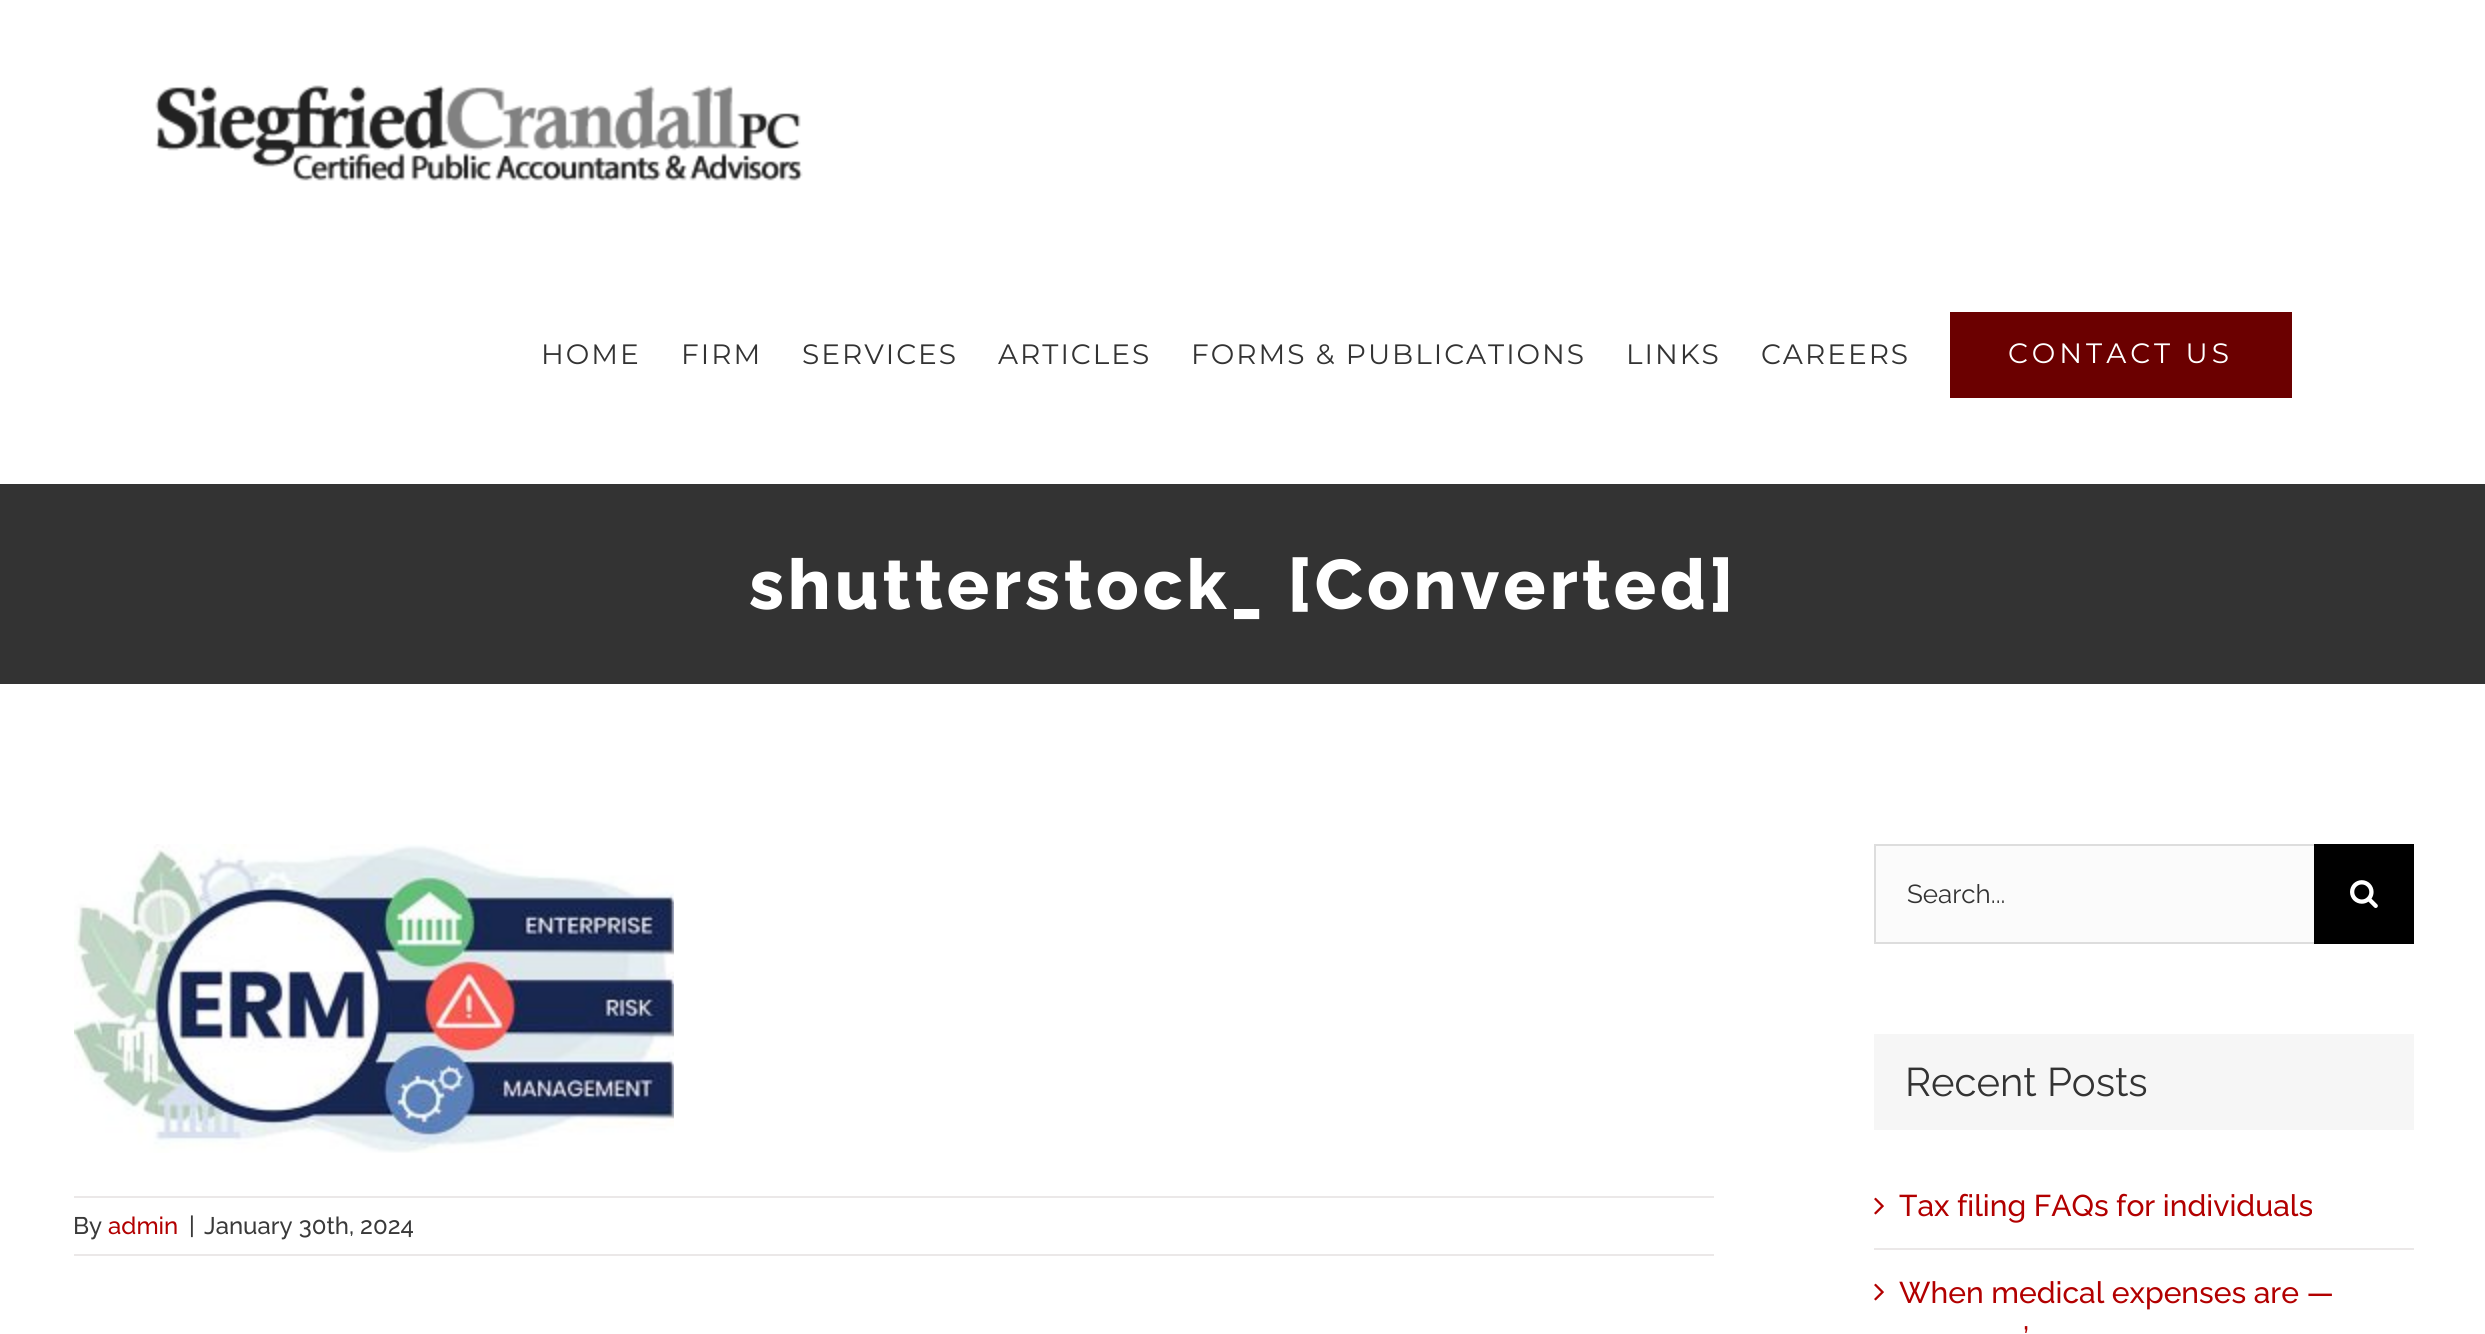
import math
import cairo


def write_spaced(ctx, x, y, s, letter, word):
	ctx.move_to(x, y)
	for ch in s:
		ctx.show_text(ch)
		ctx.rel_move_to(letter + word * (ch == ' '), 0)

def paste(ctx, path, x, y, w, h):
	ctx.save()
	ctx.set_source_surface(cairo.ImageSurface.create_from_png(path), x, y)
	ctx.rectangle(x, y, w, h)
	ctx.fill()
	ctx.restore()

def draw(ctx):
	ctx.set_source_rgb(1, 1, 1)
	ctx.paint()
	paste(ctx, 'media/1.png', 155, 85, 648, 96)
	ctx.select_font_face('Montserrat')
	ctx.set_font_size(28)
	ctx.set_source_rgb(0.2, 0.2, 0.2)
	for x, y, s in [
		(541, 364, 'HOME'),
		(681, 364, 'FIRM'),
		(802, 364, 'SERVICES'),
		(998, 364, 'ARTICLES'),
		(1191, 364, 'FORMS & PUBLICATIONS'),
		(1626, 364, 'LINKS'),
		(1761, 364, 'CAREERS'),
	]:
		write_spaced(ctx, x, y, s, 2, 0)
	ctx.set_source_rgb(0.42, 0, 0)
	ctx.rectangle(1950, 312, 342, 86)
	ctx.fill()
	ctx.set_source_rgb(1, 1, 1)
	write_spaced(ctx, 2008, 363, 'CONTACT US', 4, 0)
	ctx.set_source_rgb(0.2, 0.2, 0.2)
	ctx.rectangle(0, 484, 2485, 200)
	ctx.fill()
	ctx.select_font_face('Raleway ExtraBold')
	ctx.set_font_size(70)
	ctx.set_source_rgb(1, 1, 1)
	write_spaced(ctx, 749, 609, 'shutterstock_ [Converted]', 4, 0)
	paste(ctx, 'media/2.png', 74, 844, 600, 309)
	ctx.set_source_rgb(0.918, 0.91, 0.91)
	ctx.rectangle(74, 1196, 1640, 2)
	ctx.fill()
	ctx.rectangle(74, 1254, 1640, 2)
	ctx.fill()
	ctx.select_font_face('Raleway Medium')
	ctx.set_font_size(24)
	ctx.set_source_rgb(0.227, 0.227, 0.227)
	ctx.move_to(73, 1234)
	ctx.show_text('By')
	ctx.set_source_rgb(0.698, 0, 0)
	ctx.move_to(108, 1234)
	ctx.show_text('admin')
	ctx.set_source_rgb(0.227, 0.227, 0.227)
	ctx.move_to(189, 1234)
	ctx.show_text('|')
	ctx.move_to(204, 1234)
	ctx.show_text('January 30th, 2024')
	ctx.set_source_rgb(0.984, 0.984, 0.984)
	ctx.rectangle(1876, 846, 438, 96)
	ctx.fill()
	ctx.set_source_rgb(0.867, 0.867, 0.867)
	ctx.rectangle(1874, 844, 440, 2)
	ctx.rectangle(1874, 942, 440, 2)
	ctx.rectangle(1874, 844, 2, 100)
	ctx.fill()
	ctx.select_font_face('Raleway')
	ctx.set_font_size(26)
	ctx.set_source_rgb(0.2, 0.2, 0.2)
	ctx.move_to(1907, 903)
	ctx.show_text('Search...')
	ctx.set_source_rgb(0, 0, 0)
	ctx.rectangle(2314, 844, 100, 100)
	ctx.fill()
	paste(ctx, 'media/3.png', 2350, 880, 28, 28)
	ctx.set_source_rgb(0.961, 0.961, 0.961)
	ctx.rectangle(1874, 1034, 540, 96)
	ctx.fill()
	ctx.set_font_size(40)
	ctx.set_source_rgb(0.2, 0.2, 0.2)
	ctx.move_to(1905, 1096)
	ctx.show_text('Recent Posts')
	ctx.set_source_rgb(0.918, 0.91, 0.91)
	ctx.rectangle(1874, 1248, 540, 2)
	ctx.fill()
	paste(ctx, 'media/4.png', 1874, 1197, 10, 18)
	ctx.select_font_face('Raleway Medium')
	ctx.set_font_size(30)
	ctx.set_source_rgb(0.698, 0, 0)
	ctx.move_to(1899, 1216)
	ctx.show_text('Tax filing FAQs for individuals')
	paste(ctx, 'media/4.png', 1874, 1283, 10, 18)
	ctx.move_to(1899, 1303)
	ctx.show_text('When medical expenses are —')
	ctx.move_to(2023, 1348)
	ctx.show_text('’')


surface = cairo.ImageSurface(cairo.FORMAT_RGB24, 2485, 1334)
ctx = cairo.Context(surface)
options = cairo.FontOptions()
options.set_hint_metrics(cairo.HINT_METRICS_OFF)
options.set_hint_style(cairo.HINT_STYLE_NONE)
ctx.set_font_options(options)
ctx.set_miter_limit(4)
draw(ctx)
surface.write_to_png('image.png')
